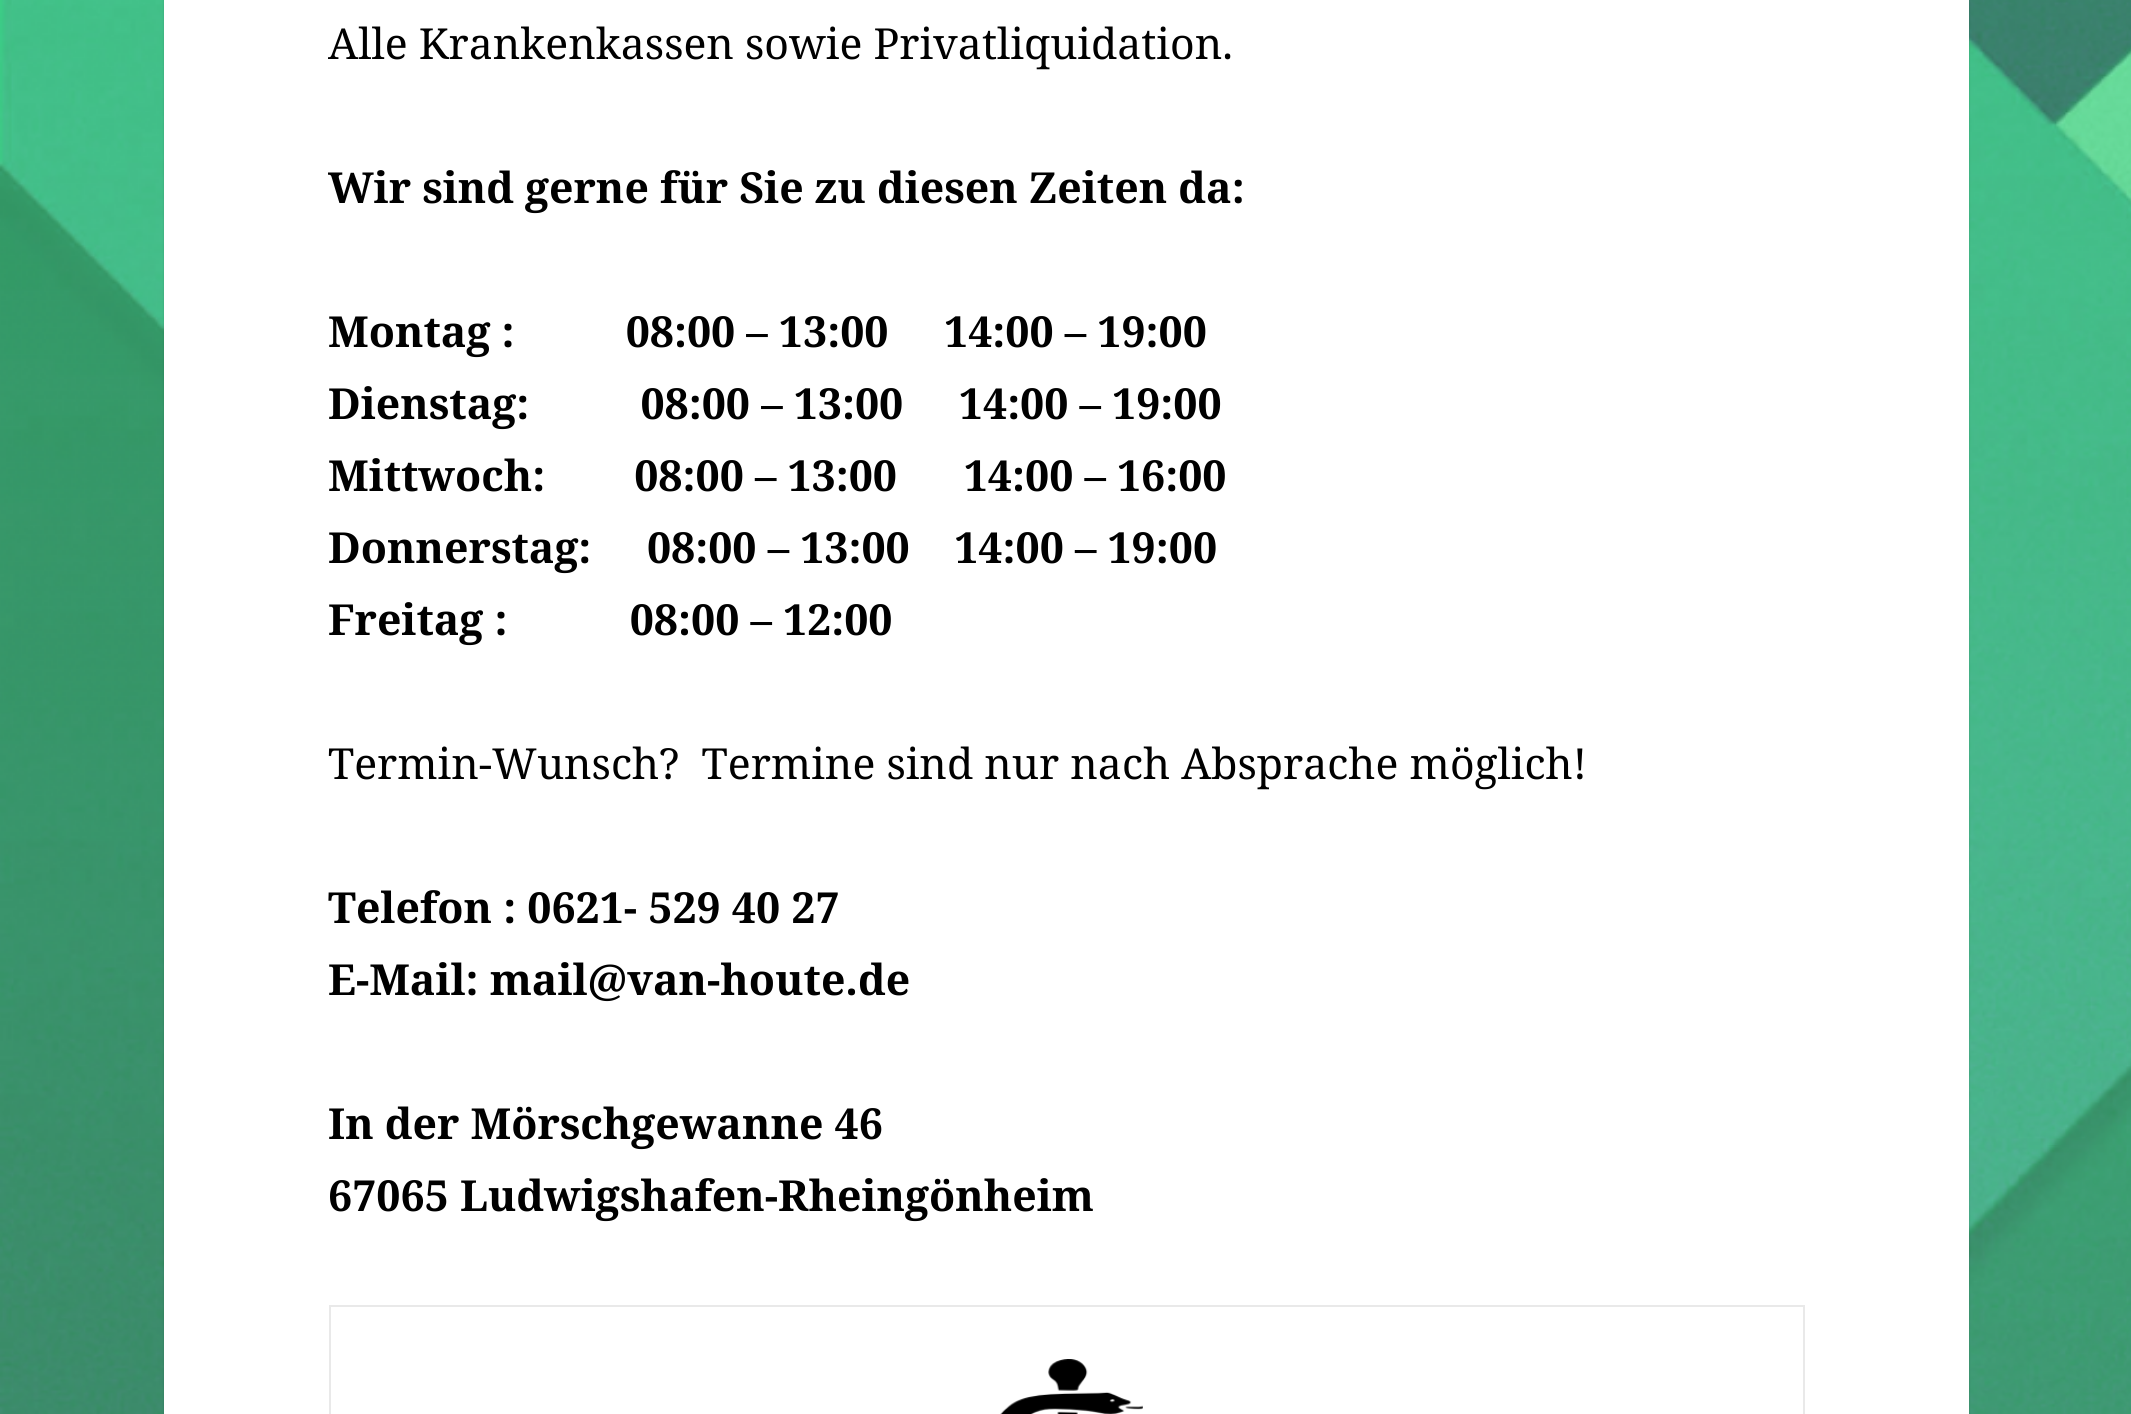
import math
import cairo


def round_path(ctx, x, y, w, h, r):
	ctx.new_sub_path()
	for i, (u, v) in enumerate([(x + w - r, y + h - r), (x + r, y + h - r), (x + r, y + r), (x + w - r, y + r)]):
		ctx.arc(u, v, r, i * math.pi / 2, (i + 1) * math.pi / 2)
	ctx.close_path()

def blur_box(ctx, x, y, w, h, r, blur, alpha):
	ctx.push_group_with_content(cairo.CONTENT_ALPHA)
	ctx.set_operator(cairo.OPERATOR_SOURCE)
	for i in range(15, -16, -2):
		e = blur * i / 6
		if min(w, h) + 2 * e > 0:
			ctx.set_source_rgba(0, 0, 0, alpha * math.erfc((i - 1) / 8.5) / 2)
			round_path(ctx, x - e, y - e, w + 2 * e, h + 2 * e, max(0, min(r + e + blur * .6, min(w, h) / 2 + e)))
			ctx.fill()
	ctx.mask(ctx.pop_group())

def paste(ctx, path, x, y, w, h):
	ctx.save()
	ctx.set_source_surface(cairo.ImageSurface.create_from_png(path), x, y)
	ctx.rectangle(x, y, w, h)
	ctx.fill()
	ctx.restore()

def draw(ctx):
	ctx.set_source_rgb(1, 1, 1)
	ctx.paint()
	paste(ctx, 'media/1.png', 0, 0, 2131, 1414)
	ctx.set_source_rgb(0, 0, 0)
	blur_box(ctx, 164, -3, 1805, 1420, 0, 1, 0.15)
	ctx.set_source_rgb(1, 1, 1)
	ctx.rectangle(164, 0, 1805, 1414)
	ctx.fill()
	ctx.select_font_face('Noto Serif')
	ctx.set_font_size(42.75)
	ctx.set_source_rgb(0, 0, 0)
	ctx.move_to(328, 59)
	ctx.show_text('Alle Krankenkassen sowie Privatliquidation.')
	ctx.select_font_face('Noto Serif', cairo.FONT_SLANT_NORMAL, cairo.FONT_WEIGHT_BOLD)
	for x, y, s in [
		(328, 203, 'Wir sind gerne für Sie zu diesen Zeiten da:'),
		(328, 347, 'Montag :          08:00 – 13:00     14:00 – 19:00'),
		(328, 419, 'Dienstag:          08:00 – 13:00     14:00 – 19:00'),
		(328, 491, 'Mittwoch:        08:00 – 13:00      14:00 – 16:00'),
		(328, 563, 'Donnerstag:     08:00 – 13:00    14:00 – 19:00'),
		(328, 635, 'Freitag :           08:00 – 12:00'),
	]:
		ctx.move_to(x, y)
		ctx.show_text(s)
	ctx.select_font_face('Noto Serif')
	ctx.move_to(328, 779)
	ctx.show_text('Termin-Wunsch?  Termine sind nur nach Absprache möglich!')
	ctx.select_font_face('Noto Serif', cairo.FONT_SLANT_NORMAL, cairo.FONT_WEIGHT_BOLD)
	for x, y, s in [
		(328, 923, 'Telefon : 0621- 529 40 27'),
		(328, 995, 'E-Mail: mail@van-houte.de'),
		(328, 1139, 'In der Mörschgewanne 46'),
		(328, 1211, '67065 Ludwigshafen-Rheingönheim'),
	]:
		ctx.move_to(x, y)
		ctx.show_text(s)
	ctx.rectangle(330, 1306, 1474, 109)
	ctx.set_source_rgb(0.914, 0.914, 0.914)
	ctx.stroke()
	paste(ctx, 'media/2.png', 1000, 1359, 143, 55)


surface = cairo.ImageSurface(cairo.FORMAT_RGB24, 2131, 1414)
ctx = cairo.Context(surface)
options = cairo.FontOptions()
options.set_hint_metrics(cairo.HINT_METRICS_OFF)
options.set_hint_style(cairo.HINT_STYLE_NONE)
ctx.set_font_options(options)
ctx.set_miter_limit(4)
draw(ctx)
surface.write_to_png('image.png')
